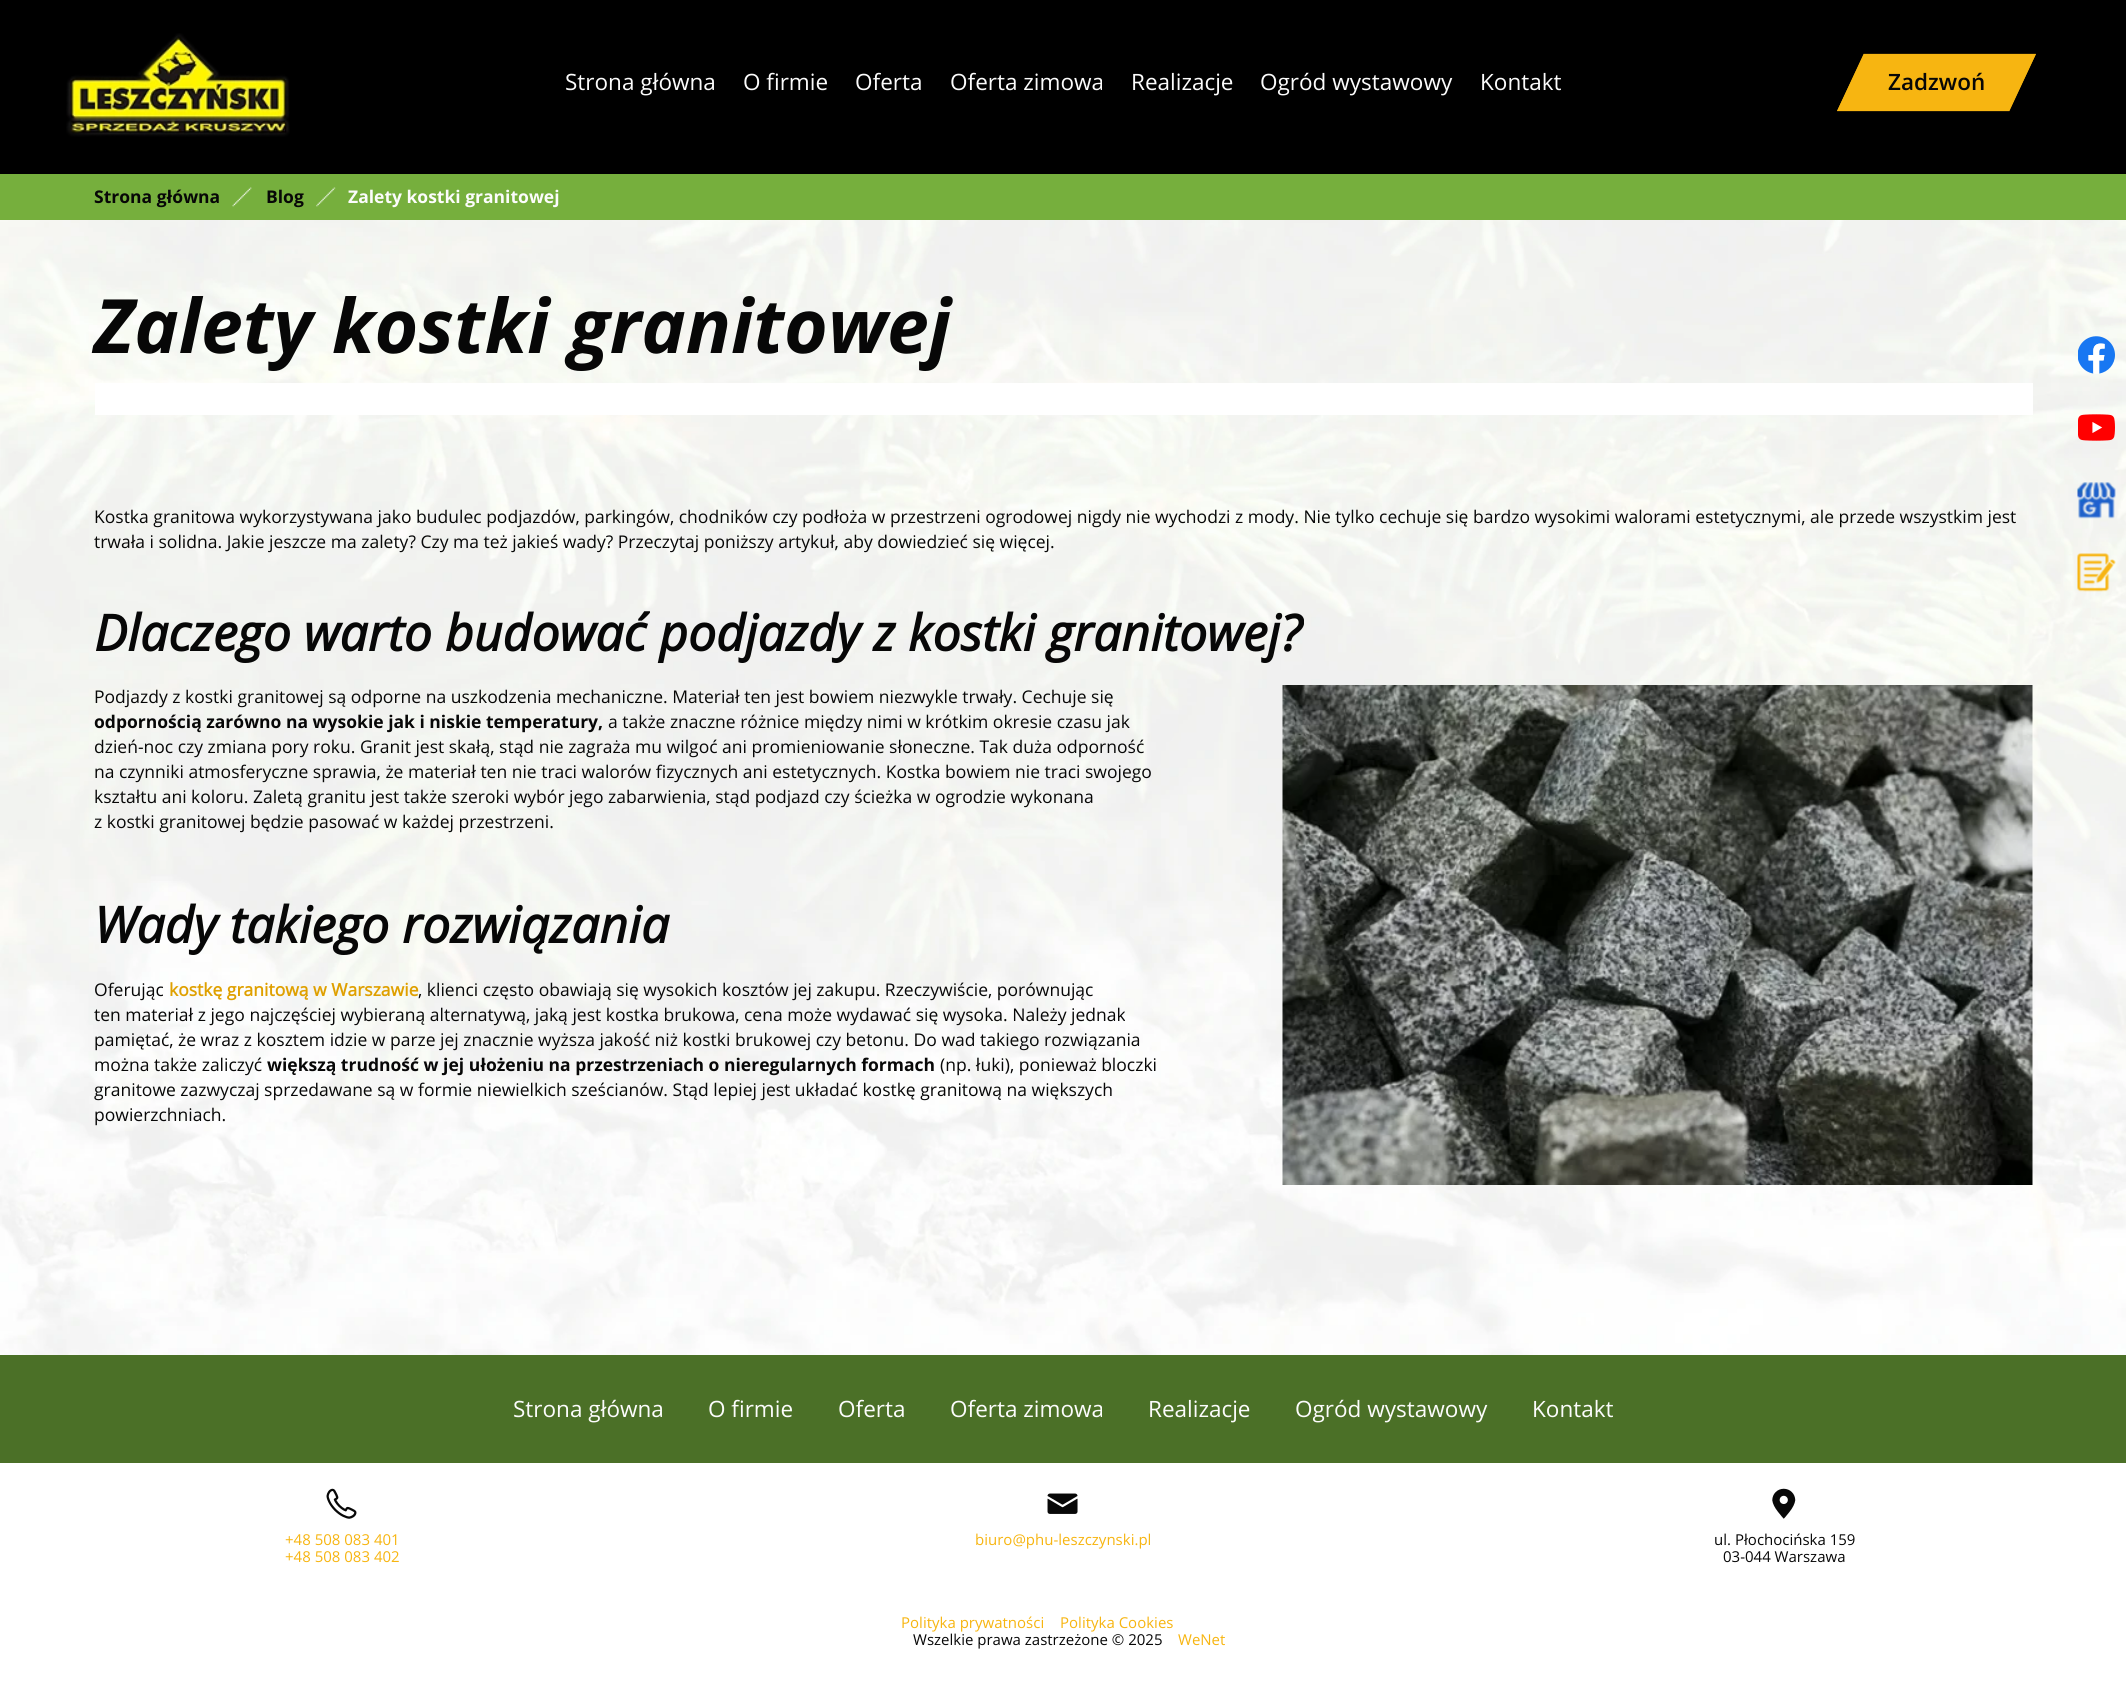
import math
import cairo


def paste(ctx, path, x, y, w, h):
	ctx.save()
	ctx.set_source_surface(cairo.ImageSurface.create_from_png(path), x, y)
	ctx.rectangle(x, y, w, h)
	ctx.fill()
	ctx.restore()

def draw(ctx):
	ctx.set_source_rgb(1, 1, 1)
	ctx.paint()
	paste(ctx, 'media/1.png', 0, 220, 2126, 1135)
	ctx.set_source_rgb(0, 0, 0)
	ctx.rectangle(0, 0, 2126, 174)
	ctx.fill()
	paste(ctx, 'media/2.png', 66, 33, 224, 104)
	ctx.select_font_face('Open Sans')
	ctx.set_font_size(22.5)
	ctx.set_source_rgb(0.988, 0.988, 0.988)
	for x, y, s in [
		(565, 90, 'Strona główna'),
		(743, 90, 'O firmie'),
		(855, 90, 'Oferta'),
		(950, 90, 'Oferta zimowa'),
		(1131, 90, 'Realizacje'),
		(1260, 90, 'Ogród wystawowy'),
		(1480, 90, 'Kontakt'),
	]:
		ctx.move_to(x, y)
		ctx.show_text(s)
	ctx.set_source_rgb(0.965, 0.71, 0.067)
	ctx.new_path()
	ctx.move_to(1864, 54)
	ctx.line_to(2036, 54)
	ctx.line_to(2009, 111)
	ctx.line_to(1837, 111)
	ctx.close_path()
	ctx.fill()
	ctx.new_path()
	ctx.move_to(1864, 54.5)
	ctx.line_to(2035, 54.5)
	ctx.line_to(2009, 110.5)
	ctx.line_to(1838, 110.5)
	ctx.close_path()
	ctx.set_line_width(1.2)
	ctx.stroke()
	ctx.select_font_face('Open Sans SemiBold')
	ctx.set_source_rgb(0.031, 0.031, 0.031)
	ctx.move_to(1888, 90)
	ctx.show_text('Zadzwoń')
	ctx.set_source_rgb(0.463, 0.686, 0.239)
	ctx.rectangle(0, 174, 2126, 46)
	ctx.fill()
	ctx.select_font_face('Open Sans', cairo.FONT_SLANT_NORMAL, cairo.FONT_WEIGHT_BOLD)
	ctx.set_font_size(17.5)
	ctx.set_source_rgb(0.031, 0.031, 0.031)
	ctx.move_to(94, 203)
	ctx.show_text('Strona główna')
	paste(ctx, 'media/3.png', 232, 187, 20, 20)
	ctx.move_to(266, 203)
	ctx.show_text('Blog')
	paste(ctx, 'media/4.png', 316, 187, 20, 20)
	ctx.set_source_rgb(0.988, 0.988, 0.988)
	ctx.move_to(348, 203)
	ctx.show_text('Zalety kostki granitowej')
	ctx.select_font_face('Open Sans', cairo.FONT_SLANT_ITALIC, cairo.FONT_WEIGHT_BOLD)
	ctx.set_font_size(75)
	ctx.set_source_rgb(0.031, 0.031, 0.031)
	ctx.move_to(94, 353)
	ctx.show_text('Zalety kostki granitowej')
	ctx.set_source_rgb(1, 1, 1)
	ctx.rectangle(95, 383, 1938, 32)
	ctx.fill()
	ctx.select_font_face('Open Sans')
	ctx.set_font_size(17.5)
	ctx.set_source_rgb(0.031, 0.031, 0.031)
	ctx.move_to(94, 523)
	ctx.show_text('Kostka granitowa wykorzystywana jako budulec podjazdów, parkingów, chodników czy podłoża w przestrzeni ogrodowej nigdy nie wychodzi z mody. Nie tylko cechuje się bardzo wysokimi walorami estetycznymi, ale przede wszystkim jest')
	ctx.move_to(94, 548)
	ctx.show_text('trwała i solidna. Jakie jeszcze ma zalety? Czy ma też jakieś wady? Przeczytaj poniższy artykuł, aby dowiedzieć się więcej.')
	ctx.select_font_face('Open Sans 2', cairo.FONT_SLANT_ITALIC, cairo.FONT_WEIGHT_BOLD)
	ctx.set_font_size(50)
	ctx.move_to(94, 651)
	ctx.show_text('Dlaczego warto budować podjazdy z kostki granitowej?')
	ctx.select_font_face('Open Sans')
	ctx.set_font_size(17.5)
	ctx.move_to(94, 703)
	ctx.show_text('Podjazdy z kostki granitowej są odporne na uszkodzenia mechaniczne. Materiał ten jest bowiem niezwykle trwały. Cechuje się')
	paste(ctx, 'media/5.png', 1282, 685, 751, 500)
	ctx.select_font_face('Open Sans', cairo.FONT_SLANT_NORMAL, cairo.FONT_WEIGHT_BOLD)
	ctx.move_to(94, 728)
	ctx.show_text('odpornością zarówno na wysokie jak i niskie temperatury,')
	ctx.select_font_face('Open Sans')
	for x, y, s in [
		(608, 728, 'a także znaczne różnice między nimi w krótkim okresie czasu jak'),
		(94, 753, 'dzień-noc czy zmiana pory roku. Granit jest skałą, stąd nie zagraża mu wilgoć ani promieniowanie słoneczne. Tak duża odporność'),
		(94, 778, 'na czynniki atmosferyczne sprawia, że materiał ten nie traci walorów fizycznych ani estetycznych. Kostka bowiem nie traci swojego'),
		(94, 803, 'kształtu ani koloru. Zaletą granitu jest także szeroki wybór jego zabarwienia, stąd podjazd czy ścieżka w ogrodzie wykonana'),
		(94, 828, 'z kostki granitowej będzie pasować w każdej przestrzeni.'),
	]:
		ctx.move_to(x, y)
		ctx.show_text(s)
	ctx.select_font_face('Open Sans 2', cairo.FONT_SLANT_ITALIC, cairo.FONT_WEIGHT_BOLD)
	ctx.set_font_size(50)
	ctx.move_to(94, 943)
	ctx.show_text('Wady takiego rozwiązania')
	ctx.select_font_face('Open Sans')
	ctx.set_font_size(17.5)
	ctx.move_to(94, 996)
	ctx.show_text('Oferując')
	ctx.select_font_face('Open Sans 2', cairo.FONT_SLANT_NORMAL, cairo.FONT_WEIGHT_BOLD)
	ctx.set_source_rgb(0.875, 0.627, 0)
	ctx.move_to(169, 996)
	ctx.show_text('kostkę granitową w Warszawie')
	ctx.select_font_face('Open Sans')
	ctx.set_source_rgb(0.031, 0.031, 0.031)
	for x, y, s in [
		(418, 996, ', klienci często obawiają się wysokich kosztów jej zakupu. Rzeczywiście, porównując'),
		(94, 1021, 'ten materiał z jego najczęściej wybieraną alternatywą, jaką jest kostka brukowa, cena może wydawać się wysoka. Należy jednak'),
		(94, 1046, 'pamiętać, że wraz z kosztem idzie w parze jej znacznie wyższa jakość niż kostki brukowej czy betonu. Do wad takiego rozwiązania'),
		(94, 1071, 'można także zaliczyć'),
	]:
		ctx.move_to(x, y)
		ctx.show_text(s)
	ctx.select_font_face('Open Sans', cairo.FONT_SLANT_NORMAL, cairo.FONT_WEIGHT_BOLD)
	ctx.move_to(267, 1071)
	ctx.show_text('większą trudność w jej ułożeniu na przestrzeniach o nieregularnych formach')
	ctx.select_font_face('Open Sans')
	for x, y, s in [
		(940, 1071, '(np. łuki), ponieważ bloczki'),
		(94, 1096, 'granitowe zazwyczaj sprzedawane są w formie niewielkich sześcianów. Stąd lepiej jest układać kostkę granitową na większych'),
		(94, 1121, 'powierzchniach.'),
	]:
		ctx.move_to(x, y)
		ctx.show_text(s)
	paste(ctx, 'media/6.png', 2078, 336, 37, 38)
	paste(ctx, 'media/7.png', 2078, 414, 37, 27)
	paste(ctx, 'media/8.png', 2077, 482, 39, 37)
	paste(ctx, 'media/9.png', 2077, 553, 39, 39)
	ctx.set_source_rgb(0.294, 0.439, 0.153)
	ctx.rectangle(0, 1355, 2126, 108)
	ctx.fill()
	ctx.set_font_size(22.5)
	ctx.set_source_rgb(0.988, 0.988, 0.988)
	for x, y, s in [
		(513, 1417, 'Strona główna'),
		(708, 1417, 'O firmie'),
		(838, 1417, 'Oferta'),
		(950, 1417, 'Oferta zimowa'),
		(1148, 1417, 'Realizacje'),
		(1295, 1417, 'Ogród wystawowy'),
		(1532, 1417, 'Kontakt'),
	]:
		ctx.move_to(x, y)
		ctx.show_text(s)
	paste(ctx, 'media/10.png', 326, 1488, 31, 31)
	ctx.set_font_size(15)
	ctx.set_source_rgb(0.965, 0.71, 0.067)
	ctx.move_to(285, 1545)
	ctx.show_text('+48 508 083 401')
	ctx.move_to(285, 1562)
	ctx.show_text('+48 508 083 402')
	paste(ctx, 'media/11.png', 1047, 1493, 31, 21)
	ctx.move_to(975, 1545)
	ctx.show_text('biuro@phu-leszczynski.pl')
	paste(ctx, 'media/12.png', 1772, 1488, 24, 31)
	ctx.set_source_rgb(0.031, 0.031, 0.031)
	ctx.move_to(1714, 1545)
	ctx.show_text('ul. Płochocińska 159')
	ctx.move_to(1723, 1562)
	ctx.show_text('03-044 Warszawa')
	ctx.set_source_rgb(0.965, 0.71, 0.067)
	ctx.move_to(901, 1628)
	ctx.show_text('Polityka prywatności')
	ctx.move_to(1060, 1628)
	ctx.show_text('Polityka Cookies')
	ctx.set_source_rgb(0.031, 0.031, 0.031)
	ctx.move_to(913, 1645)
	ctx.show_text('Wszelkie prawa zastrzeżone © 2025')
	ctx.set_source_rgb(0.965, 0.71, 0.067)
	ctx.move_to(1178, 1645)
	ctx.show_text('WeNet')


surface = cairo.ImageSurface(cairo.FORMAT_RGB24, 2126, 1685)
ctx = cairo.Context(surface)
options = cairo.FontOptions()
options.set_hint_metrics(cairo.HINT_METRICS_OFF)
options.set_hint_style(cairo.HINT_STYLE_NONE)
ctx.set_font_options(options)
ctx.set_miter_limit(4)
draw(ctx)
surface.write_to_png('image.png')
